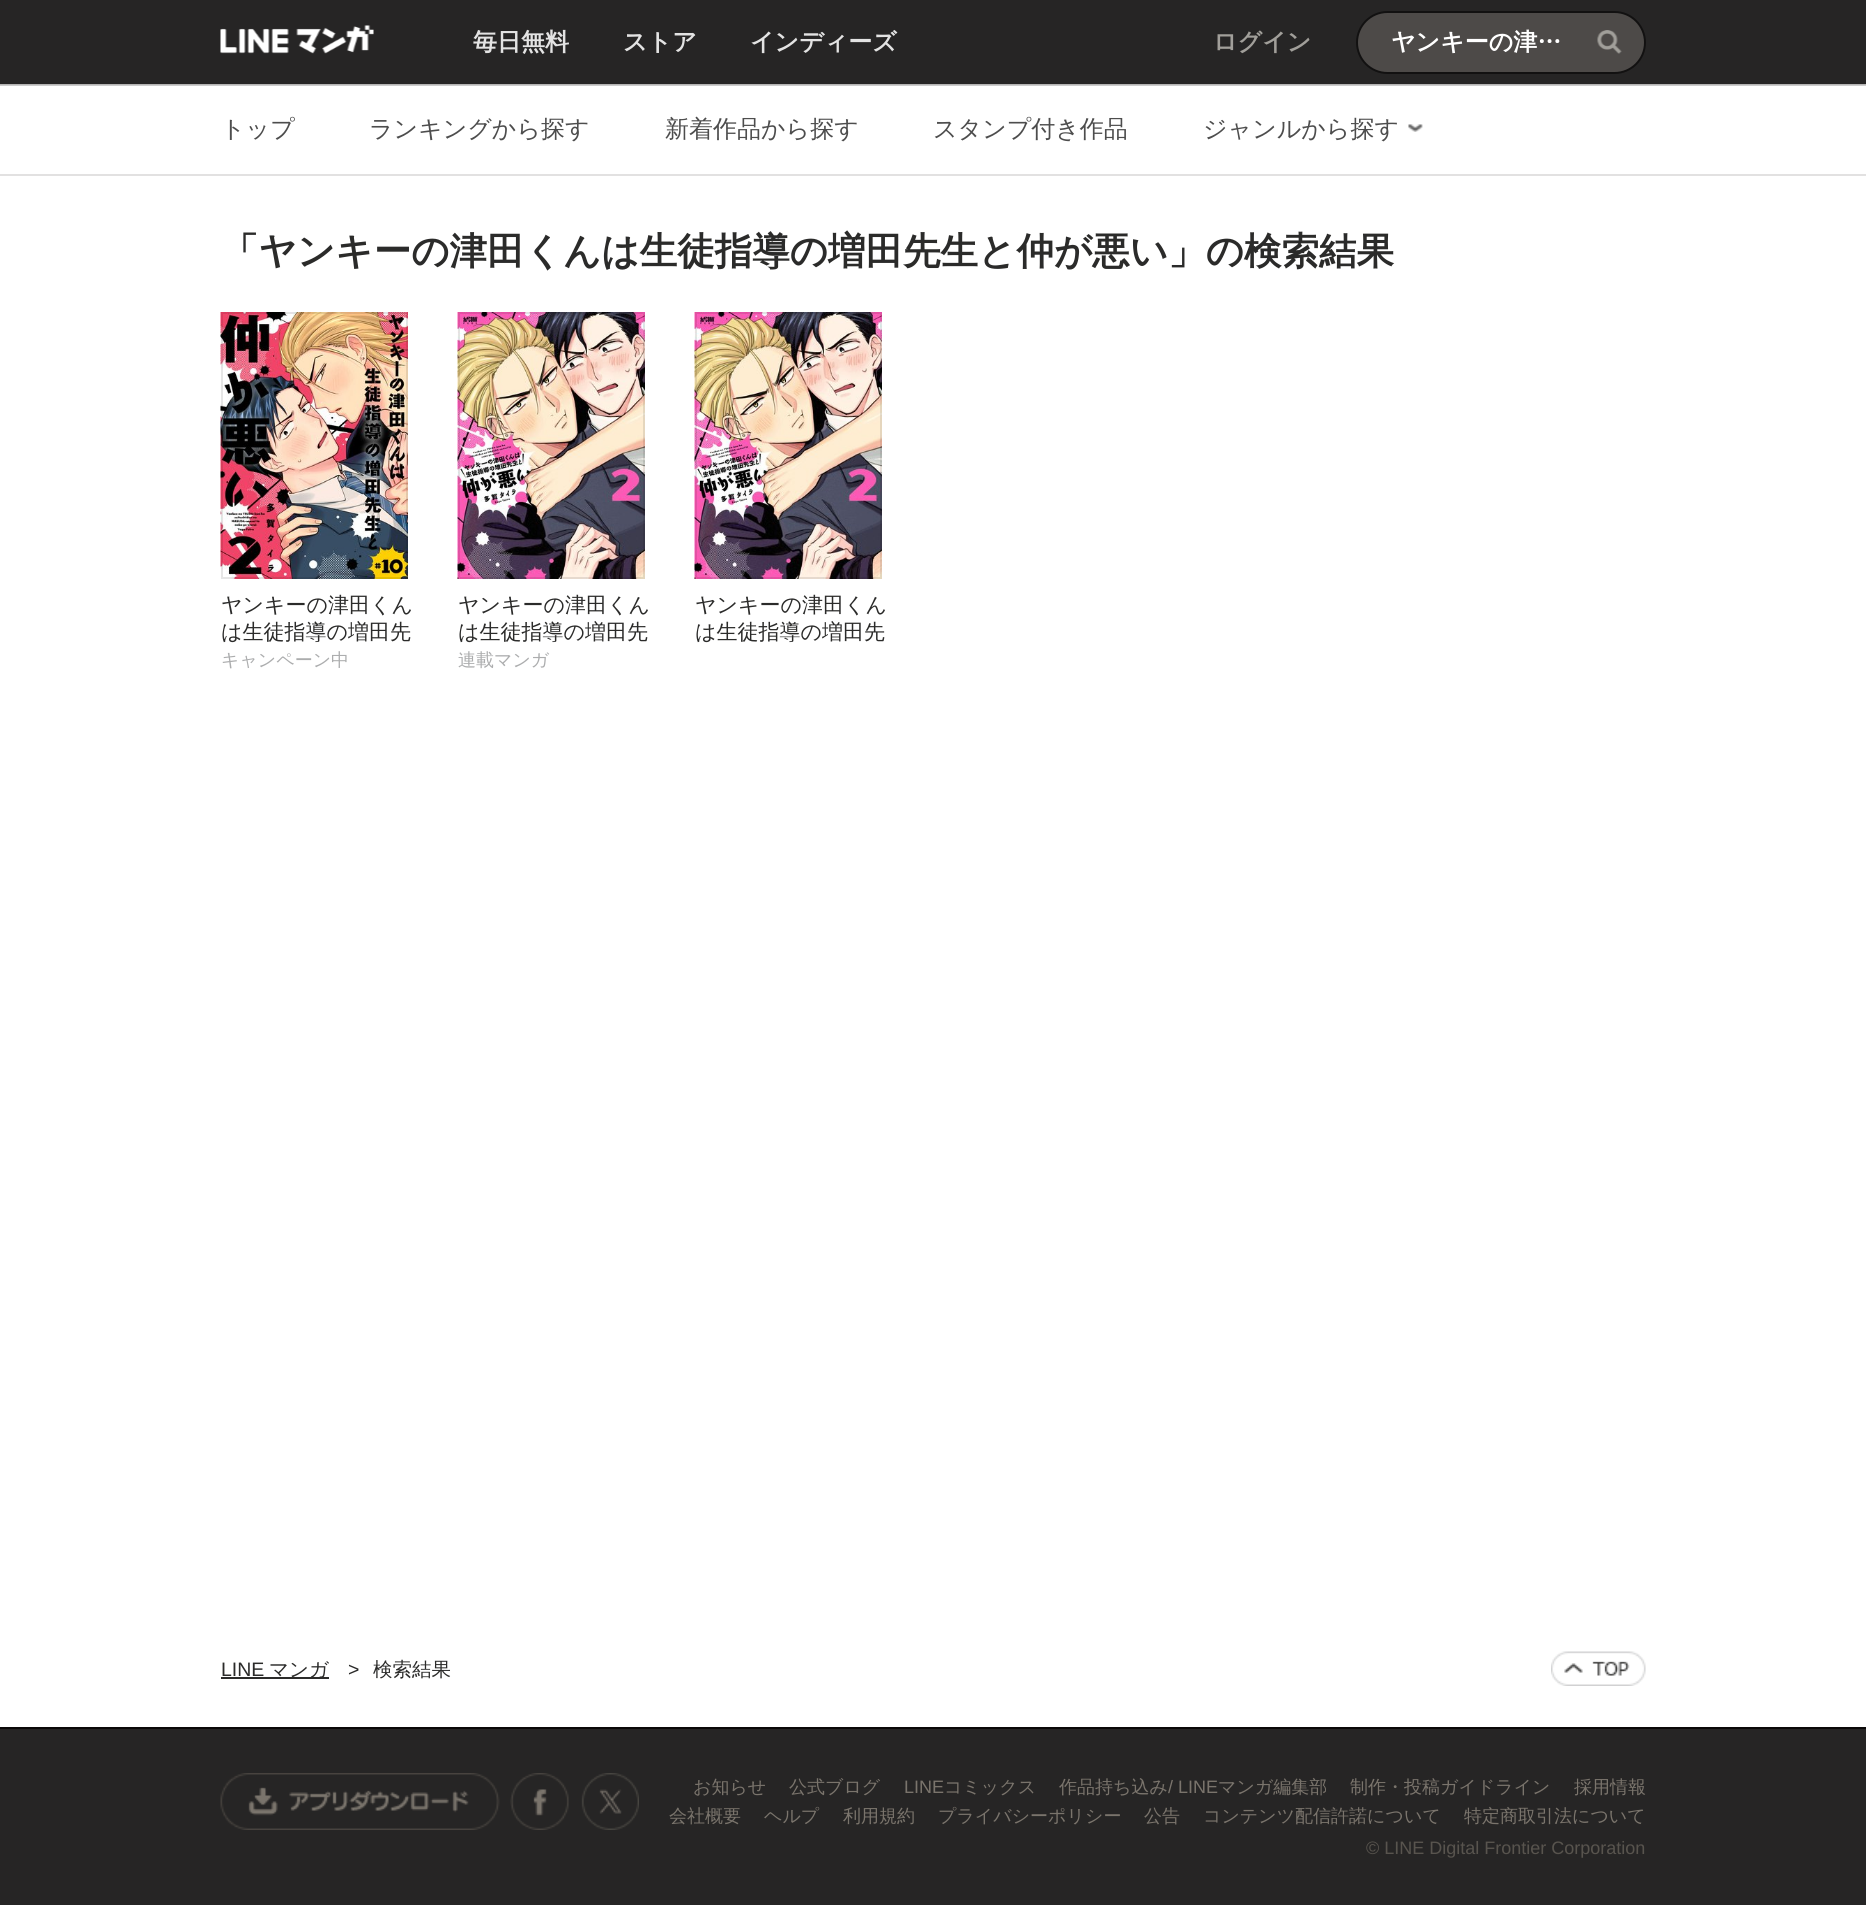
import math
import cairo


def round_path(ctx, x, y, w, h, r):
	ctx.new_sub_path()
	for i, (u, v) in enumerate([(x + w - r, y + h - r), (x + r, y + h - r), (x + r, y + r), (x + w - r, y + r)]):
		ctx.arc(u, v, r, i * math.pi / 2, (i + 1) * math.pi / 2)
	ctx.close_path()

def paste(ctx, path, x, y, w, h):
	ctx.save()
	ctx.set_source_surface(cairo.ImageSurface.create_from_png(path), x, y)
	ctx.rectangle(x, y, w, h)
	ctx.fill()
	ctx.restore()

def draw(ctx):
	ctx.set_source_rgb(1, 1, 1)
	ctx.paint()
	ctx.set_source_rgb(0.8, 0.8, 0.8)
	ctx.rectangle(0, 85, 1866, 1)
	ctx.fill()
	ctx.set_source_rgb(0.149, 0.145, 0.145)
	ctx.rectangle(0, 0, 1866, 84)
	ctx.fill()
	paste(ctx, 'media/1.png', 220, 25, 154, 29)
	ctx.select_font_face('WenQuanYi Zen Hei', cairo.FONT_SLANT_NORMAL, cairo.FONT_WEIGHT_BOLD)
	ctx.set_font_size(24)
	ctx.set_source_rgb(0.89, 0.89, 0.89)
	for x, y, s in [
		(473, 50, '毎日無料'),
		(623, 50, 'ストア'),
		(750, 50, 'インディーズ'),
	]:
		ctx.move_to(x, y)
		ctx.show_text(s)
	ctx.set_source_rgb(0.631, 0.624, 0.604)
	ctx.move_to(1213, 50)
	ctx.show_text('ログイン')
	ctx.set_source_rgb(0.302, 0.29, 0.282)
	round_path(ctx, 1357, 12, 288, 61, 30.5)
	ctx.fill_preserve()
	ctx.set_source_rgb(0.071, 0.067, 0.067)
	ctx.stroke()
	ctx.set_source_rgb(1, 1, 1)
	ctx.move_to(1391, 50)
	ctx.show_text('ヤンキーの津…')
	paste(ctx, 'media/2.png', 1597, 30, 25, 24)
	ctx.set_source_rgb(0.71, 0.706, 0.706)
	ctx.rectangle(0, 84, 1866, 1)
	ctx.fill()
	ctx.select_font_face('WenQuanYi Zen Hei Medium')
	ctx.set_source_rgb(0.302, 0.302, 0.302)
	for x, y, s in [
		(221, 137, 'トップ'),
		(369, 137, 'ランキングから探す'),
		(665, 137, '新着作品から探す'),
		(933, 137, 'スタンプ付き作品'),
		(1203, 137, 'ジャンルから探す'),
	]:
		ctx.move_to(x, y)
		ctx.show_text(s)
	paste(ctx, 'media/3.png', 1408, 124, 15, 8)
	ctx.set_source_rgb(0.886, 0.882, 0.882)
	ctx.rectangle(0, 174, 1866, 2)
	ctx.fill()
	ctx.select_font_face('WenQuanYi Zen Hei', cairo.FONT_SLANT_NORMAL, cairo.FONT_WEIGHT_BOLD)
	ctx.set_font_size(37.5)
	ctx.set_source_rgb(0.169, 0.169, 0.165)
	ctx.move_to(221, 264)
	ctx.show_text('「ヤンキーの津田くんは生徒指導の増田先生と仲が悪い」の検索結果')
	paste(ctx, 'media/4.png', 220, 312, 188, 267)
	ctx.rectangle(222, 313, 185, 265)
	ctx.set_source_rgba(0, 0, 0, 0.1)
	ctx.stroke()
	ctx.select_font_face('WenQuanYi Zen Hei Medium')
	ctx.set_font_size(21)
	ctx.set_source_rgb(0.169, 0.169, 0.165)
	ctx.move_to(221, 612)
	ctx.show_text('ヤンキーの津田くん')
	ctx.move_to(221, 639)
	ctx.show_text('は生徒指導の増田先')
	ctx.set_font_size(18)
	ctx.set_source_rgb(0.675, 0.678, 0.682)
	ctx.move_to(221, 666)
	ctx.show_text('キャンペーン中')
	paste(ctx, 'media/5.png', 457, 312, 188, 267)
	ctx.rectangle(459, 313, 185, 265)
	ctx.set_source_rgba(0, 0, 0, 0.1)
	ctx.stroke()
	ctx.set_font_size(21)
	ctx.set_source_rgb(0.169, 0.169, 0.165)
	ctx.move_to(458, 612)
	ctx.show_text('ヤンキーの津田くん')
	ctx.move_to(458, 639)
	ctx.show_text('は生徒指導の増田先')
	ctx.set_font_size(18)
	ctx.set_source_rgb(0.675, 0.678, 0.682)
	ctx.move_to(458, 666)
	ctx.show_text('連載マンガ')
	paste(ctx, 'media/5.png', 694, 312, 188, 267)
	ctx.rectangle(696, 313, 185, 265)
	ctx.set_source_rgba(0, 0, 0, 0.1)
	ctx.stroke()
	ctx.set_font_size(21)
	ctx.set_source_rgb(0.169, 0.169, 0.165)
	ctx.move_to(695, 612)
	ctx.show_text('ヤンキーの津田くん')
	ctx.move_to(695, 639)
	ctx.show_text('は生徒指導の増田先')
	ctx.select_font_face('Liberation Sans')
	ctx.set_font_size(19.5)
	ctx.move_to(221, 1676)
	ctx.show_text('LINE')
	ctx.rectangle(221, 1677, 108, 2)
	ctx.fill()
	ctx.select_font_face('WenQuanYi Zen Hei Medium')
	ctx.move_to(269, 1676)
	ctx.show_text('マンガ')
	ctx.select_font_face('Liberation Sans')
	ctx.move_to(348, 1676)
	ctx.show_text('>')
	ctx.select_font_face('WenQuanYi Zen Hei Medium')
	ctx.move_to(373, 1676)
	ctx.show_text('検索結果')
	paste(ctx, 'media/6.png', 1551, 1651, 95, 35)
	ctx.set_source_rgb(0.149, 0.145, 0.145)
	ctx.rectangle(0, 1729, 1866, 176)
	ctx.fill()
	ctx.set_source_rgb(0.043, 0.039, 0.039)
	ctx.rectangle(0, 1727, 1866, 2)
	ctx.fill()
	paste(ctx, 'media/7.png', 220, 1773, 280, 57)
	paste(ctx, 'media/8.png', 510, 1773, 59, 57)
	paste(ctx, 'media/9.png', 581, 1773, 58, 57)
	ctx.set_font_size(18)
	ctx.set_source_rgb(0.478, 0.455, 0.424)
	ctx.move_to(693, 1793)
	ctx.show_text('お知らせ')
	ctx.move_to(789, 1793)
	ctx.show_text('公式ブログ')
	ctx.select_font_face('Liberation Sans')
	ctx.move_to(904, 1793)
	ctx.show_text('LINE')
	ctx.select_font_face('WenQuanYi Zen Hei Medium')
	ctx.move_to(944, 1793)
	ctx.show_text('コミックス')
	ctx.move_to(1059, 1793)
	ctx.show_text('作品持ち込み')
	ctx.select_font_face('Liberation Sans')
	ctx.move_to(1168, 1793)
	ctx.show_text('/ LINE')
	ctx.select_font_face('WenQuanYi Zen Hei Medium')
	for x, y, s in [
		(1218, 1793, 'マンガ編集部'),
		(1350, 1793, '制作・投稿ガイドライン'),
		(1574, 1793, '採用情報'),
		(669, 1822, '会社概要'),
		(764, 1822, 'ヘルプ'),
		(843, 1822, '利用規約'),
		(938, 1822, 'プライバシーポリシー'),
		(1144, 1822, '公告'),
		(1203, 1822, 'コンテンツ配信許諾について'),
		(1464, 1822, '特定商取引法について'),
	]:
		ctx.move_to(x, y)
		ctx.show_text(s)
	ctx.select_font_face('Liberation Sans')
	ctx.set_source_rgb(0.345, 0.329, 0.306)
	ctx.move_to(1366, 1854)
	ctx.show_text('© LINE Digital Frontier Corporation')


surface = cairo.ImageSurface(cairo.FORMAT_RGB24, 1866, 1905)
ctx = cairo.Context(surface)
options = cairo.FontOptions()
options.set_hint_metrics(cairo.HINT_METRICS_OFF)
options.set_hint_style(cairo.HINT_STYLE_NONE)
ctx.set_font_options(options)
ctx.set_miter_limit(4)
draw(ctx)
surface.write_to_png('image.png')
